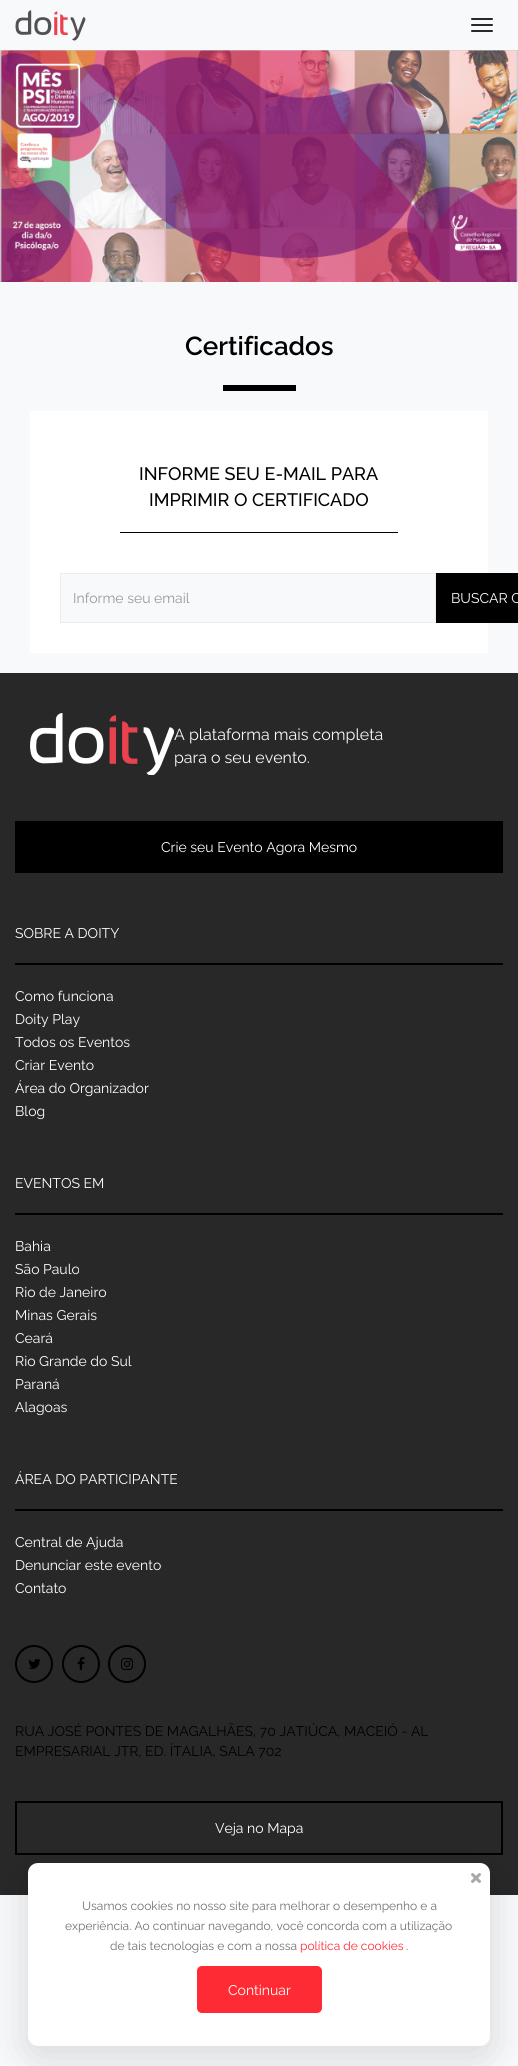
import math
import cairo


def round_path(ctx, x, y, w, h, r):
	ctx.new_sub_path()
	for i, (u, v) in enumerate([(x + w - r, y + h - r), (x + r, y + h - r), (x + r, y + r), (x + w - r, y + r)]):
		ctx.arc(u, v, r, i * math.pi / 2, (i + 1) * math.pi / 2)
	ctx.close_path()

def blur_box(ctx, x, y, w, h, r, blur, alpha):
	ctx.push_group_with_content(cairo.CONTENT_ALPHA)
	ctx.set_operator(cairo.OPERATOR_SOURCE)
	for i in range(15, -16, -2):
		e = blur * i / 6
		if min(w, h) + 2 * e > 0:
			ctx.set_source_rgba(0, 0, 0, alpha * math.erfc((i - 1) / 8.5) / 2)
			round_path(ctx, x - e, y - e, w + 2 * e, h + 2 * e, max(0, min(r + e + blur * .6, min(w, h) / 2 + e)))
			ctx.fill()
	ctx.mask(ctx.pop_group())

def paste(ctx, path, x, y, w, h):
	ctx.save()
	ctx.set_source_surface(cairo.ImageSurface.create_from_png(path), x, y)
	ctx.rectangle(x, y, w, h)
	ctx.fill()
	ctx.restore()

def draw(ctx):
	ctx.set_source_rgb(0.969, 0.976, 0.98)
	ctx.paint()
	paste(ctx, 'media/1.png', 15, 10, 71, 31)
	ctx.set_source_rgb(0.157, 0.157, 0.157)
	round_path(ctx, 471, 18, 22, 2, 1)
	ctx.fill()
	round_path(ctx, 471, 24, 22, 2, 1)
	ctx.fill()
	round_path(ctx, 471, 30, 22, 2, 1)
	ctx.fill()
	ctx.set_source_rgb(0.8, 0.8, 0.8)
	ctx.rectangle(0, 50, 518, 232)
	ctx.fill()
	paste(ctx, 'media/2.png', 0, 50, 518, 232)
	ctx.select_font_face('Raleway SemiBold')
	ctx.set_font_size(26)
	ctx.set_source_rgb(0, 0, 0)
	ctx.move_to(185, 355)
	ctx.show_text('Certificados')
	ctx.rectangle(223, 385, 73, 6)
	ctx.fill()
	ctx.set_source_rgb(1, 1, 1)
	ctx.rectangle(30, 411, 458, 242)
	ctx.fill()
	ctx.set_source_rgb(0, 0, 0)
	ctx.rectangle(120, 532, 278, 1)
	ctx.fill()
	ctx.select_font_face('Raleway Medium')
	ctx.set_font_size(18)
	ctx.move_to(139, 480)
	ctx.show_text('INFORME SEU E-MAIL PARA')
	ctx.move_to(149, 506)
	ctx.show_text('IMPRIMIR O CERTIFICADO')
	ctx.set_source_rgb(0.969, 0.976, 0.98)
	ctx.rectangle(60.5, 573.5, 375, 49)
	ctx.fill_preserve()
	ctx.set_source_rgb(0.906, 0.929, 0.941)
	ctx.set_line_width(1)
	ctx.stroke()
	ctx.select_font_face('Raleway')
	ctx.set_font_size(14)
	ctx.set_source_rgb(0.6, 0.6, 0.6)
	ctx.move_to(73, 603)
	ctx.show_text('Informe seu email')
	ctx.set_source_rgb(0, 0, 0)
	ctx.rectangle(436, 573, 82, 50)
	ctx.fill()
	ctx.set_source_rgb(1, 1, 1)
	ctx.move_to(451, 603)
	ctx.show_text('BUSCAR C')
	ctx.set_source_rgb(0.157, 0.157, 0.157)
	ctx.rectangle(0, 673, 518, 1222)
	ctx.fill()
	paste(ctx, 'media/3.png', 30, 713, 144, 62)
	ctx.set_font_size(16)
	ctx.set_source_rgb(0.969, 0.976, 0.98)
	ctx.move_to(174, 740)
	ctx.show_text('A plataforma mais completa')
	ctx.move_to(174, 763)
	ctx.show_text('para o seu evento.')
	ctx.set_source_rgb(0, 0, 0)
	ctx.rectangle(15, 821, 488, 52)
	ctx.fill()
	ctx.set_font_size(14)
	ctx.set_source_rgb(1, 1, 1)
	ctx.move_to(161, 852)
	ctx.show_text('Crie seu Evento Agora Mesmo')
	ctx.set_source_rgb(0, 0, 0)
	ctx.rectangle(15, 963, 488, 2)
	ctx.fill()
	ctx.set_source_rgb(1, 1, 1)
	for x, y, s in [
		(15, 938, 'SOBRE A DOITY'),
		(15, 1001, 'Como funciona'),
		(15, 1024, 'Doity Play'),
		(15, 1047, 'Todos os Eventos'),
		(15, 1070, 'Criar Evento'),
		(15, 1093, 'Área do Organizador'),
		(15, 1116, 'Blog'),
	]:
		ctx.move_to(x, y)
		ctx.show_text(s)
	ctx.set_source_rgb(0, 0, 0)
	ctx.rectangle(15, 1213, 488, 2)
	ctx.fill()
	ctx.set_source_rgb(1, 1, 1)
	for x, y, s in [
		(15, 1188, 'EVENTOS EM'),
		(15, 1251, 'Bahia'),
		(15, 1274, 'São Paulo'),
		(15, 1297, 'Rio de Janeiro'),
		(15, 1320, 'Minas Gerais'),
		(15, 1343, 'Ceará'),
		(15, 1366, 'Rio Grande do Sul'),
		(15, 1389, 'Paraná'),
		(15, 1412, 'Alagoas'),
	]:
		ctx.move_to(x, y)
		ctx.show_text(s)
	ctx.set_source_rgb(0, 0, 0)
	ctx.rectangle(15, 1509, 488, 2)
	ctx.fill()
	ctx.set_source_rgb(1, 1, 1)
	for x, y, s in [
		(15, 1484, 'ÁREA DO PARTICIPANTE'),
		(15, 1547, 'Central de Ajuda'),
		(15, 1570, 'Denunciar este evento'),
		(15, 1593, 'Contato'),
	]:
		ctx.move_to(x, y)
		ctx.show_text(s)
	ctx.new_path()
	ctx.arc(34, 1664, 18, 0, 2 * math.pi)
	ctx.set_source_rgb(0, 0, 0)
	ctx.set_line_width(2)
	ctx.stroke()
	paste(ctx, 'media/4.png', 28, 1659, 13, 10)
	ctx.arc(81, 1664, 18, 0, 2 * math.pi)
	ctx.stroke()
	paste(ctx, 'media/5.png', 77, 1657, 8, 13)
	ctx.arc(127, 1664, 18, 0, 2 * math.pi)
	ctx.stroke()
	paste(ctx, 'media/6.png', 121, 1658, 12, 12)
	ctx.move_to(15, 1736)
	ctx.show_text('RUA JOSÉ PONTES DE MAGALHÃES, 70 JATIÚCA, MACEIÓ - AL')
	ctx.move_to(15, 1756)
	ctx.show_text('EMPRESARIAL JTR, ED. ÍTALIA, SALA 702')
	ctx.rectangle(16, 1802, 486, 52)
	ctx.stroke()
	ctx.set_source_rgb(1, 1, 1)
	ctx.move_to(215, 1833)
	ctx.show_text('Veja no Mapa')
	ctx.set_source_rgb(0, 0, 0)
	blur_box(ctx, 28, 1873, 462, 183, 10, 20, 0.14)
	ctx.set_source_rgb(1, 1, 1)
	round_path(ctx, 28, 1863, 462, 183, 10)
	ctx.fill()
	paste(ctx, 'media/7.png', 471, 1873, 10, 10)
	ctx.set_font_size(12)
	ctx.set_source_rgb(0.439, 0.439, 0.439)
	for x, y, s in [
		(82, 1910, 'Usamos cookies no nosso site para melhorar o desempenho e a'),
		(65, 1930, 'experiência. Ao continuar navegando, você concorda com a utilização'),
		(110, 1950, 'de tais tecnologias e com a nossa'),
	]:
		ctx.move_to(x, y)
		ctx.show_text(s)
	ctx.set_source_rgb(1, 0.169, 0.204)
	ctx.move_to(300, 1950)
	ctx.show_text('política de cookies')
	ctx.set_source_rgb(0.439, 0.439, 0.439)
	ctx.move_to(406, 1950)
	ctx.show_text('.')
	ctx.set_source_rgb(1, 0.169, 0.204)
	round_path(ctx, 197, 1966, 125, 47, 5)
	ctx.fill()
	ctx.set_font_size(14)
	ctx.set_source_rgb(1, 1, 1)
	ctx.move_to(228, 1995)
	ctx.show_text('Continuar')


surface = cairo.ImageSurface(cairo.FORMAT_RGB24, 518, 2066)
ctx = cairo.Context(surface)
options = cairo.FontOptions()
options.set_hint_metrics(cairo.HINT_METRICS_OFF)
options.set_hint_style(cairo.HINT_STYLE_NONE)
ctx.set_font_options(options)
ctx.set_miter_limit(4)
draw(ctx)
surface.write_to_png('image.png')
